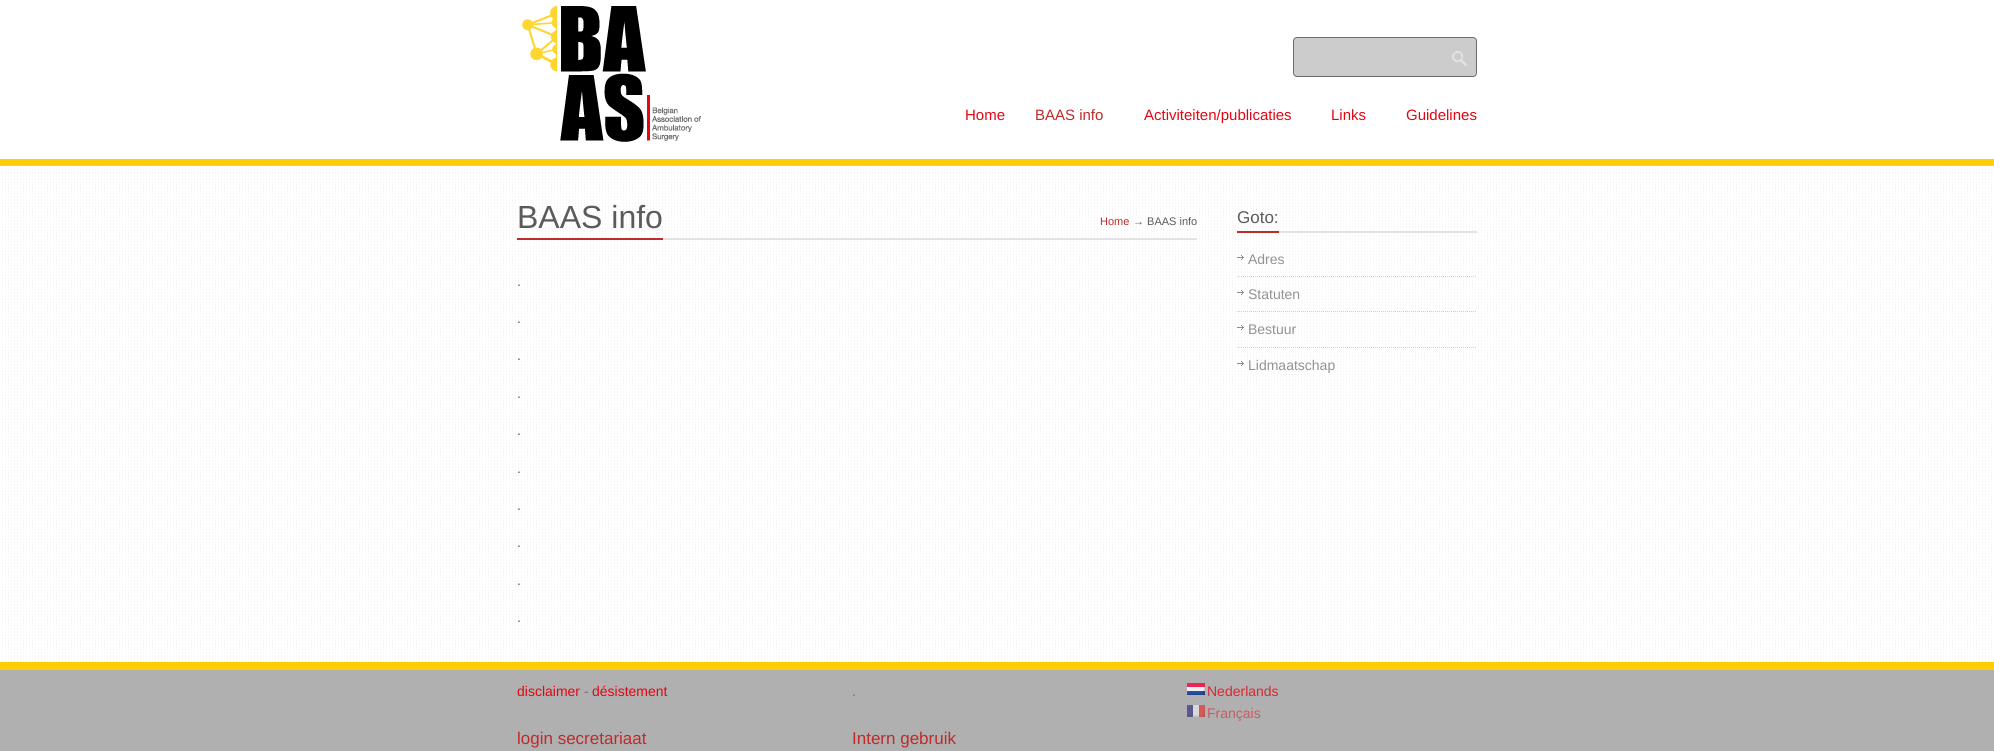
import math
import cairo


def round_path(ctx, x, y, w, h, r):
	ctx.new_sub_path()
	for i, (u, v) in enumerate([(x + w - r, y + h - r), (x + r, y + h - r), (x + r, y + r), (x + w - r, y + r)]):
		ctx.arc(u, v, r, i * math.pi / 2, (i + 1) * math.pi / 2)
	ctx.close_path()

def paste(ctx, path, x, y, w, h):
	ctx.save()
	ctx.set_source_surface(cairo.ImageSurface.create_from_png(path), x, y)
	ctx.rectangle(x, y, w, h)
	ctx.fill()
	ctx.restore()

def draw(ctx):
	ctx.set_source_rgb(1, 1, 1)
	ctx.paint()
	ctx.set_source_rgb(0.804, 0.804, 0.804)
	ctx.rectangle(0, 165, 1994, 1)
	ctx.fill()
	ctx.set_source_rgb(1, 0.804, 0.02)
	ctx.rectangle(0, 159, 1994, 6)
	ctx.fill()
	paste(ctx, 'media/1.png', 522, 6, 179, 136)
	ctx.set_source_rgb(0.8, 0.8, 0.8)
	round_path(ctx, 1293.5, 37.5, 183, 39, 3.5)
	ctx.fill_preserve()
	ctx.set_source_rgb(0.42, 0.42, 0.42)
	ctx.set_line_width(1)
	ctx.stroke()
	paste(ctx, 'media/2.png', 1452, 51, 15, 15)
	ctx.select_font_face('Liberation Sans')
	ctx.set_font_size(15)
	ctx.set_source_rgb(0.89, 0.024, 0.075)
	ctx.move_to(965, 120)
	ctx.show_text('Home')
	ctx.set_source_rgb(0.749, 0.165, 0.165)
	ctx.move_to(1035, 120)
	ctx.show_text('BAAS info')
	ctx.set_source_rgb(0.89, 0.024, 0.075)
	for x, y, s in [
		(1144, 120, 'Activiteiten/publicaties'),
		(1331, 120, 'Links'),
		(1406, 120, 'Guidelines'),
	]:
		ctx.move_to(x, y)
		ctx.show_text(s)
	paste(ctx, 'media/3.png', 2, 166, 1990, 496)
	ctx.set_source_rgb(0.886, 0.886, 0.886)
	ctx.rectangle(663, 238, 534, 2)
	ctx.fill()
	ctx.set_source_rgb(0.749, 0.165, 0.165)
	ctx.rectangle(517, 238, 146, 2)
	ctx.fill()
	ctx.set_font_size(32)
	ctx.set_source_rgb(0.357, 0.357, 0.357)
	ctx.move_to(517, 228)
	ctx.show_text('BAAS info')
	ctx.set_font_size(11)
	ctx.set_source_rgb(0.749, 0.165, 0.165)
	ctx.move_to(1100, 225)
	ctx.show_text('Home')
	ctx.set_source_rgb(0.357, 0.357, 0.357)
	ctx.move_to(1133, 225)
	ctx.show_text('→ BAAS info')
	ctx.set_font_size(14)
	for x, y, s in [
		(517, 286, '.'),
		(517, 323, '.'),
		(517, 360, '.'),
		(517, 398, '.'),
		(517, 435, '.'),
		(517, 473, '.'),
		(517, 510, '.'),
		(517, 547, '.'),
		(517, 585, '.'),
		(517, 622, '.'),
	]:
		ctx.move_to(x, y)
		ctx.show_text(s)
	ctx.set_source_rgb(0.886, 0.886, 0.886)
	ctx.rectangle(1279, 231, 198, 2)
	ctx.fill()
	ctx.set_source_rgb(0.749, 0.165, 0.165)
	ctx.rectangle(1237, 231, 42, 2)
	ctx.fill()
	ctx.set_font_size(17)
	ctx.set_source_rgb(0.357, 0.357, 0.357)
	ctx.move_to(1237, 223)
	ctx.show_text('Goto:')
	ctx.new_path()
	ctx.move_to(1237, 276.5)
	ctx.line_to(1477, 276.5)
	ctx.set_source_rgb(0.82, 0.82, 0.82)
	ctx.set_dash([1, 1])
	ctx.stroke()
	paste(ctx, 'media/4.png', 1237, 255, 7, 5)
	ctx.set_font_size(14)
	ctx.set_source_rgb(0.573, 0.573, 0.573)
	ctx.move_to(1248, 264)
	ctx.show_text('Adres')
	ctx.new_path()
	ctx.move_to(1237, 311.5)
	ctx.line_to(1477, 311.5)
	ctx.set_source_rgb(0.82, 0.82, 0.82)
	ctx.stroke()
	paste(ctx, 'media/5.png', 1237, 290, 7, 5)
	ctx.set_source_rgb(0.573, 0.573, 0.573)
	ctx.move_to(1248, 299)
	ctx.show_text('Statuten')
	ctx.new_path()
	ctx.move_to(1237, 347.5)
	ctx.line_to(1477, 347.5)
	ctx.set_source_rgb(0.82, 0.82, 0.82)
	ctx.stroke()
	paste(ctx, 'media/6.png', 1237, 325, 7, 5)
	ctx.set_source_rgb(0.573, 0.573, 0.573)
	ctx.move_to(1248, 334)
	ctx.show_text('Bestuur')
	paste(ctx, 'media/6.png', 1237, 361, 7, 5)
	ctx.move_to(1248, 370)
	ctx.show_text('Lidmaatschap')
	ctx.set_source_rgb(1, 0.804, 0.02)
	ctx.rectangle(0, 662, 1994, 8)
	ctx.fill()
	ctx.set_source_rgb(0.69, 0.69, 0.69)
	ctx.rectangle(0, 670, 1994, 81)
	ctx.fill()
	ctx.set_source_rgb(0.89, 0.024, 0.075)
	ctx.move_to(517, 696)
	ctx.show_text('disclaimer')
	ctx.set_source_rgb(0.435, 0.435, 0.435)
	ctx.move_to(584, 696)
	ctx.show_text('-')
	ctx.set_source_rgb(0.89, 0.024, 0.075)
	ctx.move_to(592, 696)
	ctx.show_text('désistement')
	ctx.set_font_size(17)
	ctx.set_source_rgb(0.749, 0.165, 0.165)
	ctx.move_to(517, 744)
	ctx.show_text('login secretariaat')
	ctx.set_font_size(14)
	ctx.set_source_rgb(0.435, 0.435, 0.435)
	ctx.move_to(852, 696)
	ctx.show_text('.')
	ctx.set_font_size(17)
	ctx.set_source_rgb(0.749, 0.165, 0.165)
	ctx.move_to(852, 744)
	ctx.show_text('Intern gebruik')
	paste(ctx, 'media/7.png', 1187, 683, 18, 12)
	ctx.set_font_size(14)
	ctx.set_source_rgb(0.851, 0.157, 0.196)
	ctx.move_to(1207, 696)
	ctx.show_text('Nederlands')
	paste(ctx, 'media/8.png', 1187, 705, 18, 12)
	ctx.set_source_rgb(0.792, 0.357, 0.384)
	ctx.move_to(1207, 718)
	ctx.show_text('Français')


surface = cairo.ImageSurface(cairo.FORMAT_RGB24, 1994, 751)
ctx = cairo.Context(surface)
options = cairo.FontOptions()
options.set_hint_metrics(cairo.HINT_METRICS_OFF)
options.set_hint_style(cairo.HINT_STYLE_NONE)
ctx.set_font_options(options)
ctx.set_miter_limit(4)
draw(ctx)
surface.write_to_png('image.png')
